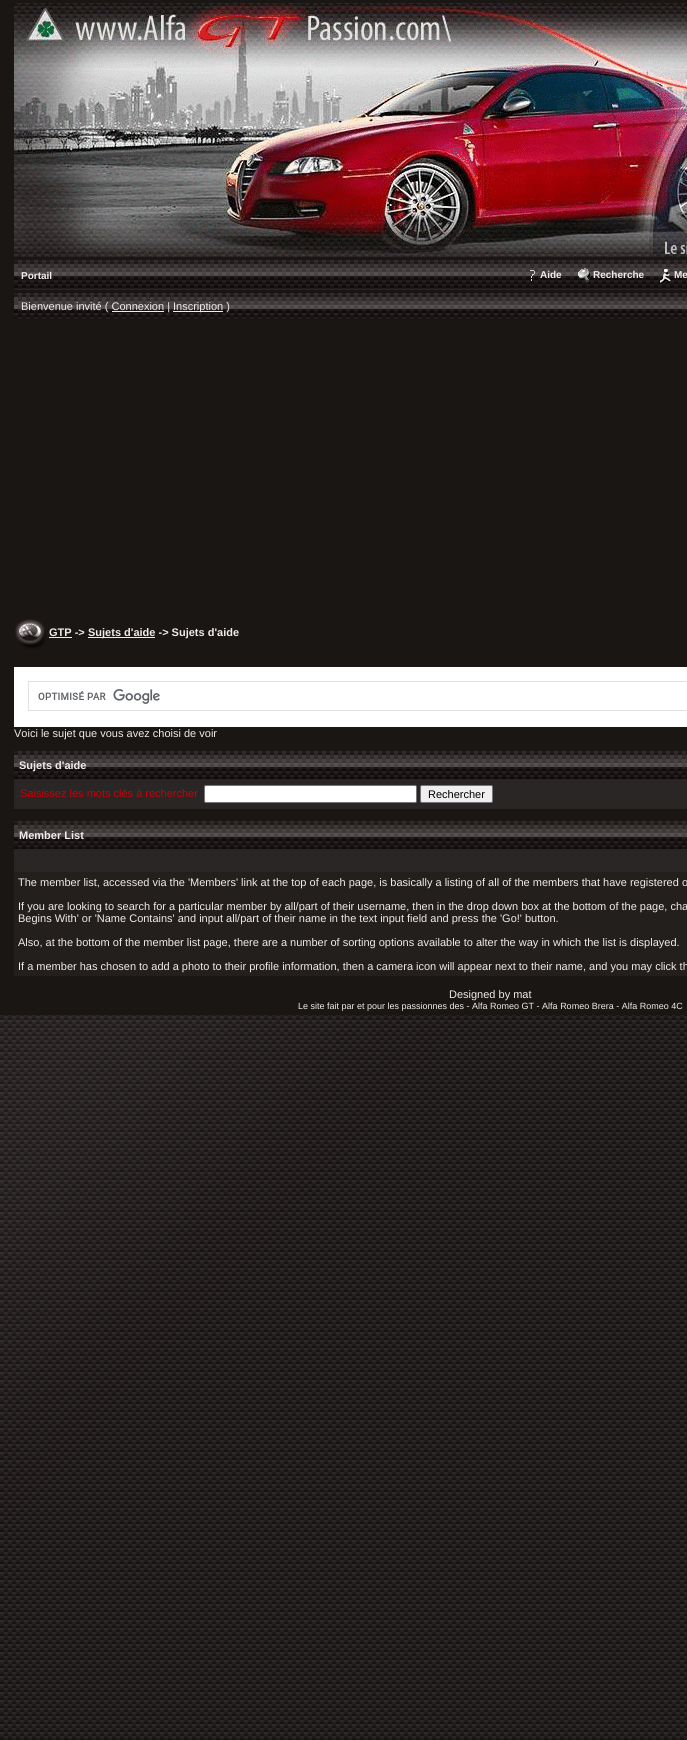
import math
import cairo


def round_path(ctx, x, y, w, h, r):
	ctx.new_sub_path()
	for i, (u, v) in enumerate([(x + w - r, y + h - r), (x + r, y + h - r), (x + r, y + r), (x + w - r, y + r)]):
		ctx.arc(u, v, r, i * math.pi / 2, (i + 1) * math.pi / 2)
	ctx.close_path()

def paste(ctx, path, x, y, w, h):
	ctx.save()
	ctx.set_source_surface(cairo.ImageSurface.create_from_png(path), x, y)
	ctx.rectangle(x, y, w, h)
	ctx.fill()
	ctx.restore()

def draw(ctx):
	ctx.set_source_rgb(1, 1, 1)
	ctx.paint()
	paste(ctx, 'media/1.png', 0, 1015, 687, 725)
	ctx.set_source_rgb(0.098, 0.086, 0.082)
	ctx.rectangle(0, 0, 687, 1015)
	ctx.fill()
	paste(ctx, 'media/2.png', 14, 3, 673, 254)
	paste(ctx, 'media/3.png', 14, 260, 673, 30)
	ctx.select_font_face('Liberation Sans', cairo.FONT_SLANT_NORMAL, cairo.FONT_WEIGHT_BOLD)
	ctx.set_font_size(10)
	ctx.set_source_rgb(0.945, 0.918, 0.914)
	ctx.move_to(21, 279)
	ctx.show_text('Portail')
	paste(ctx, 'media/4.png', 530, 270, 5, 11)
	ctx.move_to(540, 278)
	ctx.show_text('Aide')
	paste(ctx, 'media/5.png', 578, 268, 12, 15)
	ctx.move_to(593, 278)
	ctx.show_text('Recherche')
	paste(ctx, 'media/6.png', 660, 269, 11, 14)
	ctx.move_to(674, 278)
	ctx.show_text('Me')
	paste(ctx, 'media/7.png', 14, 293, 673, 26)
	ctx.select_font_face('Liberation Sans')
	ctx.set_font_size(11)
	ctx.move_to(21, 310)
	ctx.show_text('Bienvenue invité ( Connexion |')
	ctx.rectangle(173, 311, 50, 1)
	ctx.fill()
	ctx.move_to(173, 310)
	ctx.show_text('Inscription )')
	ctx.rectangle(112, 311, 52, 1)
	ctx.fill()
	paste(ctx, 'media/8.png', 15, 619, 31, 30)
	ctx.select_font_face('Liberation Sans', cairo.FONT_SLANT_NORMAL, cairo.FONT_WEIGHT_BOLD)
	ctx.move_to(49, 636)
	ctx.show_text('GTP ->')
	ctx.rectangle(49, 637, 23, 1)
	ctx.fill()
	ctx.rectangle(88, 637, 67, 1)
	ctx.fill()
	ctx.move_to(88, 636)
	ctx.show_text('Sujets d\'aide -> Sujets d\'aide')
	ctx.set_source_rgb(1, 1, 1)
	ctx.rectangle(14, 667, 673, 60)
	ctx.fill()
	ctx.rectangle(28.5, 681.5, 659, 29)
	ctx.set_source_rgb(0.875, 0.882, 0.898)
	ctx.set_line_width(1)
	ctx.stroke()
	paste(ctx, 'media/9.png', 38, 689, 122, 15)
	ctx.select_font_face('Liberation Sans')
	ctx.set_source_rgb(0.945, 0.918, 0.914)
	ctx.move_to(14, 737)
	ctx.show_text('Voici le sujet que vous avez choisi de voir')
	paste(ctx, 'media/10.png', 14, 751, 673, 28)
	ctx.select_font_face('Liberation Sans', cairo.FONT_SLANT_NORMAL, cairo.FONT_WEIGHT_BOLD)
	ctx.move_to(19, 769)
	ctx.show_text('Sujets d\'aide')
	ctx.set_source_rgb(0.161, 0.149, 0.145)
	ctx.rectangle(14, 779, 673, 30)
	ctx.fill()
	ctx.select_font_face('Liberation Sans')
	ctx.set_source_rgb(0.792, 0, 0.02)
	ctx.move_to(20, 797)
	ctx.show_text('Saisissez les mots clés à rechercher')
	ctx.set_source_rgb(1, 1, 1)
	round_path(ctx, 204.5, 785.5, 212, 17, 1.5)
	ctx.fill_preserve()
	ctx.set_source_rgb(0.463, 0.463, 0.463)
	ctx.stroke()
	ctx.set_source_rgb(0.937, 0.937, 0.937)
	round_path(ctx, 420.5, 785.5, 72, 17, 1.5)
	ctx.fill_preserve()
	ctx.set_source_rgb(0.463, 0.463, 0.463)
	ctx.stroke()
	ctx.set_source_rgb(0, 0, 0)
	ctx.move_to(428, 798)
	ctx.show_text('Rechercher')
	ctx.set_source_rgb(0.137, 0.122, 0.114)
	ctx.rectangle(14, 872, 673, 104)
	ctx.fill()
	paste(ctx, 'media/10.png', 14, 821, 673, 28)
	ctx.select_font_face('Liberation Sans', cairo.FONT_SLANT_NORMAL, cairo.FONT_WEIGHT_BOLD)
	ctx.set_source_rgb(0.945, 0.918, 0.914)
	ctx.move_to(19, 839)
	ctx.show_text('Member List')
	ctx.set_source_rgb(0.161, 0.149, 0.145)
	ctx.rectangle(14, 849, 673, 23)
	ctx.fill()
	ctx.select_font_face('Liberation Sans')
	ctx.set_source_rgb(0.945, 0.918, 0.914)
	for x, y, s in [
		(18, 886, 'The member list, accessed via the \'Members\' link at the top of each page, is basically a listing of all of the members that have registered o'),
		(18, 910, 'If you are looking to search for a particular member by all/part of their username, then in the drop down box at the bottom of the page, cha'),
		(18, 922, 'Begins With\' or \'Name Contains\' and input all/part of their name in the text input field and press the \'Go!\' button.'),
		(18, 946, 'Also, at the bottom of the member list page, there are a number of sorting options available to alter the way in which the list is displayed.'),
		(18, 970, 'If a member has chosen to add a photo to their profile information, then a camera icon will appear next to their name, and you may click th'),
		(449, 998, 'Designed by mat'),
	]:
		ctx.move_to(x, y)
		ctx.show_text(s)
	ctx.set_font_size(9)
	ctx.move_to(298, 1009)
	ctx.show_text('Le site fait par et pour les passionnes des - Alfa Romeo GT - Alfa Romeo Brera - Alfa Romeo 4C')


surface = cairo.ImageSurface(cairo.FORMAT_RGB24, 687, 1740)
ctx = cairo.Context(surface)
options = cairo.FontOptions()
options.set_hint_metrics(cairo.HINT_METRICS_OFF)
options.set_hint_style(cairo.HINT_STYLE_NONE)
ctx.set_font_options(options)
ctx.set_miter_limit(4)
draw(ctx)
surface.write_to_png('image.png')
